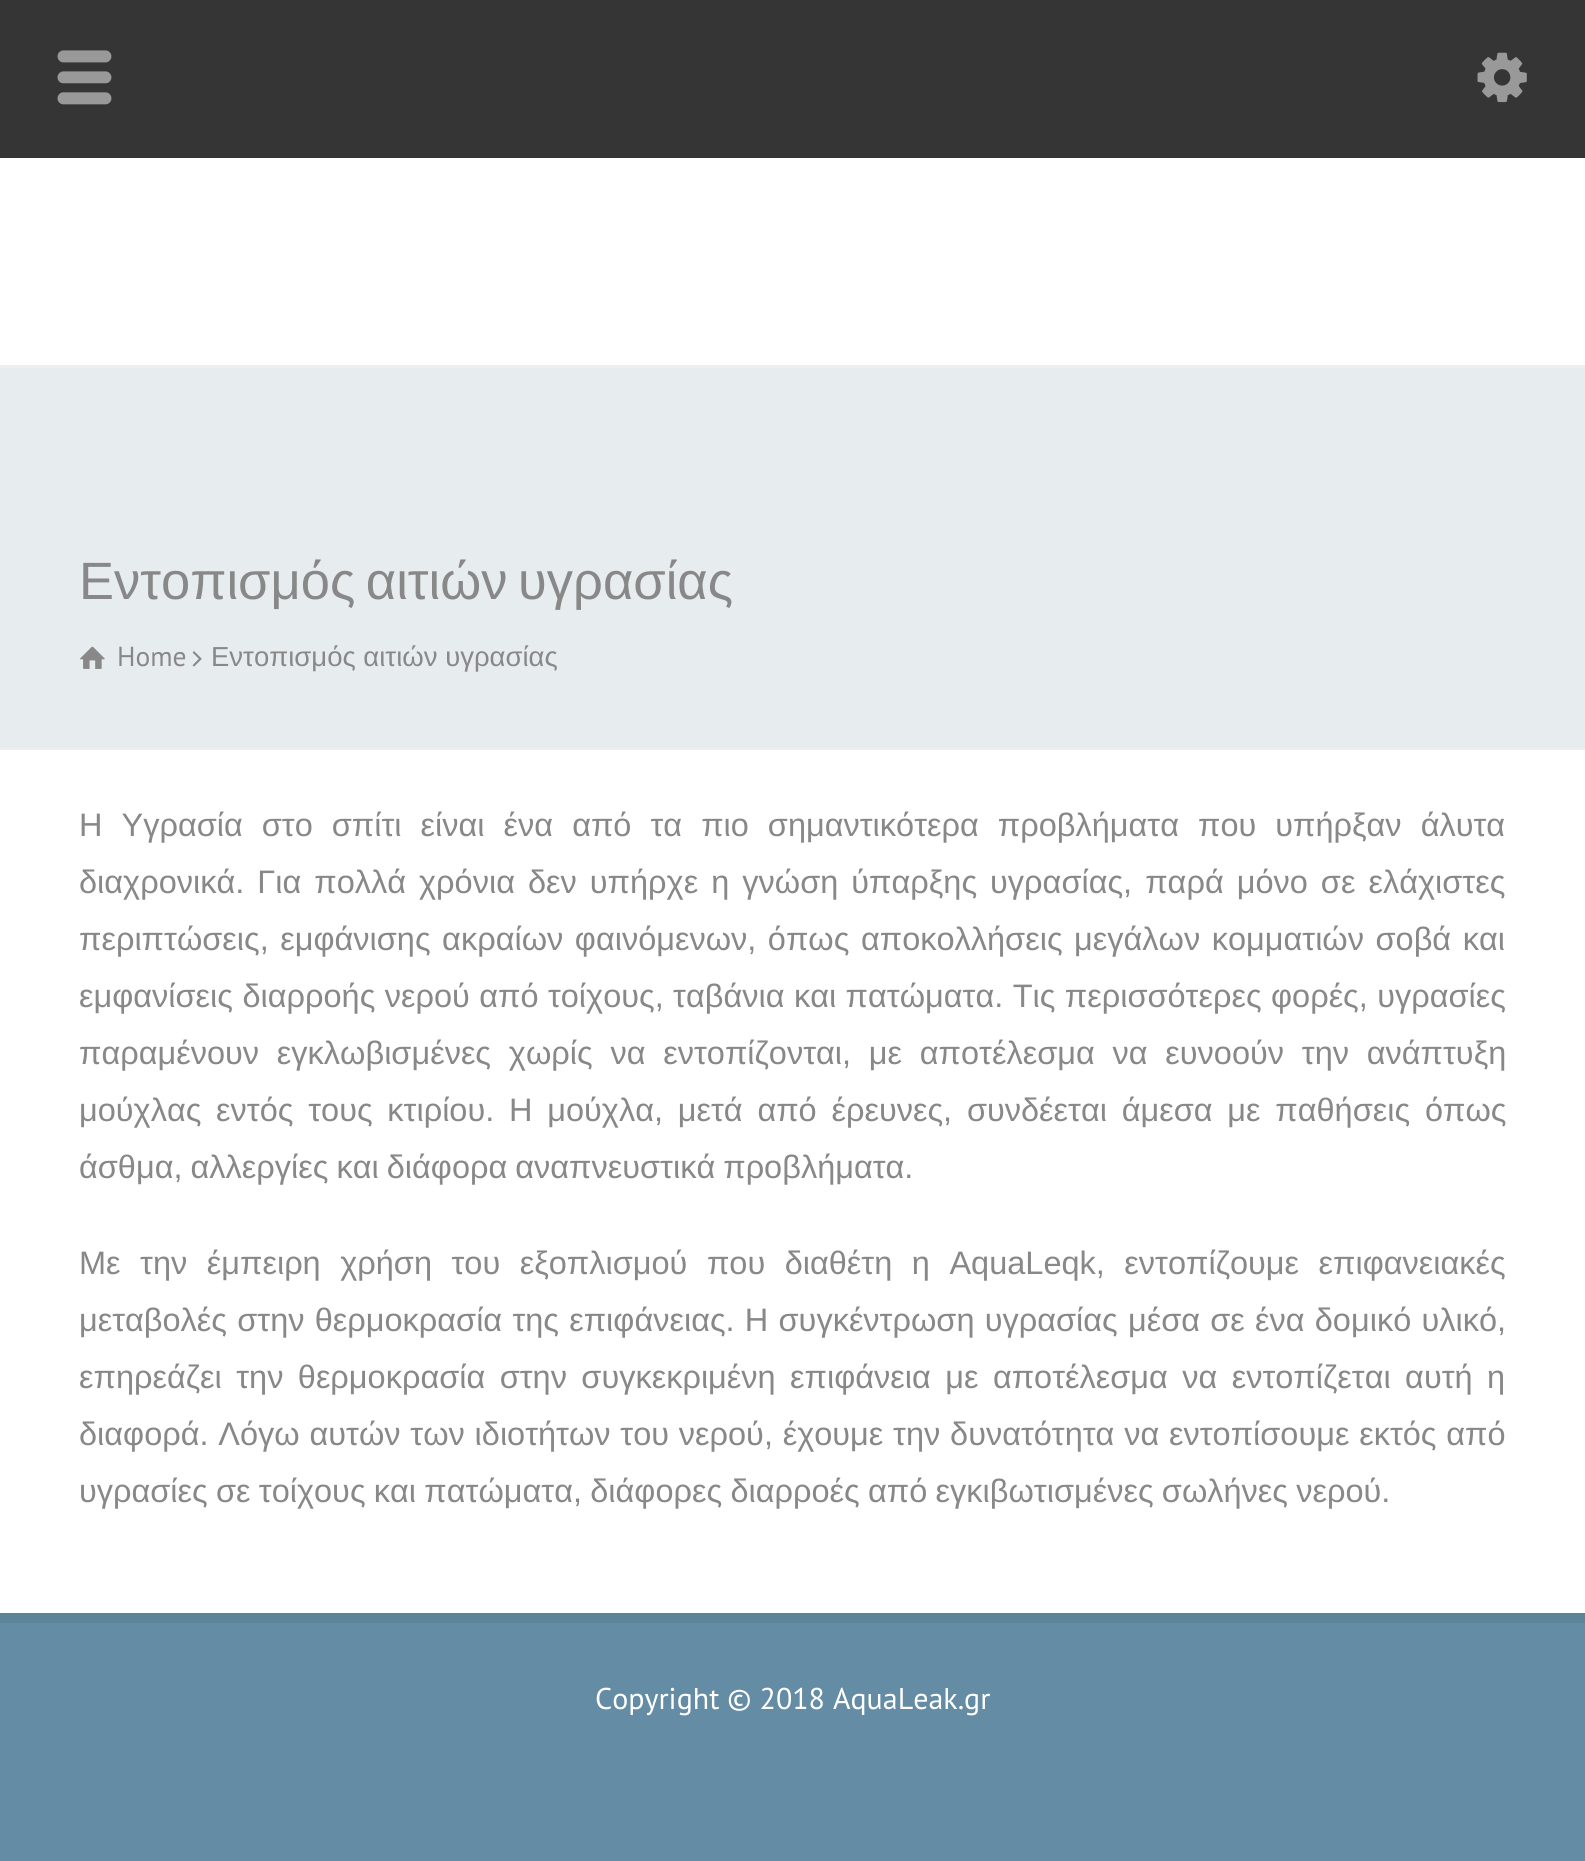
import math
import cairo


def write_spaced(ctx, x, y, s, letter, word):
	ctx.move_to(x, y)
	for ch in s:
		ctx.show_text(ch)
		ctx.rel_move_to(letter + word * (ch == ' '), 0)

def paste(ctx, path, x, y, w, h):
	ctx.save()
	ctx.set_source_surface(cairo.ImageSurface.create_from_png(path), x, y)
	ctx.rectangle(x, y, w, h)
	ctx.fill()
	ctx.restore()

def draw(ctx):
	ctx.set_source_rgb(1, 1, 1)
	ctx.paint()
	ctx.set_source_rgb(0.208, 0.208, 0.208)
	ctx.rectangle(0, 0, 1585, 158)
	ctx.fill()
	paste(ctx, 'media/1.png', 57, 50, 55, 55)
	paste(ctx, 'media/2.png', 1477, 52, 50, 51)
	ctx.set_source_rgb(0.906, 0.925, 0.937)
	ctx.rectangle(0, 368, 1585, 380)
	ctx.fill()
	ctx.set_source_rgb(0.933, 0.933, 0.933)
	ctx.rectangle(0, 365, 1585, 3)
	ctx.rectangle(0, 748, 1585, 2)
	ctx.fill()
	ctx.select_font_face('Liberation Sans')
	ctx.set_font_size(52.5)
	ctx.set_source_rgb(0.533, 0.533, 0.533)
	write_spaced(ctx, 79, 599, 'Εντοπισμός αιτιών υγρασίας', 0, -4)
	paste(ctx, 'media/3.png', 80, 646, 25, 23)
	ctx.select_font_face('PT Sans')
	ctx.set_font_size(27.5)
	ctx.move_to(117, 666)
	ctx.show_text('Home')
	paste(ctx, 'media/4.png', 192, 651, 10, 16)
	ctx.select_font_face('Liberation Sans')
	ctx.move_to(211, 666)
	ctx.show_text('Εντοπισμός αιτιών υγρασίας')
	ctx.set_font_size(32.5)
	write_spaced(ctx, 79, 836, 'Η Υγρασία στο σπίτι είναι ένα από τα πιο σημαντικότερα προβλήματα που υπήρξαν άλυτα', 0, 10)
	write_spaced(ctx, 79, 893, 'διαχρονικά. Για πολλά χρόνια δεν υπήρχε η γνώση ύπαρξης υγρασίας, παρά μόνο σε ελάχιστες', 0, 4)
	write_spaced(ctx, 79, 950, 'περιπτώσεις, εμφάνισης ακραίων φαινόμενων, όπως αποκολλήσεις μεγάλων κομματιών σοβά και', 0, 2.5)
	write_spaced(ctx, 79, 1007, 'εμφανίσεις διαρροής νερού από τοίχους, ταβάνια και πατώματα. Τις περισσότερες φορές, υγρασίες', 0, 0.4)
	write_spaced(ctx, 79, 1064, 'παραμένουν εγκλωβισμένες χωρίς να εντοπίζονται, με αποτέλεσμα να ευνοούν την ανάπτυξη', 0, 8.75)
	write_spaced(ctx, 79, 1121, 'μούχλας εντός τους κτιρίου. Η μούχλα, μετά από έρευνες, συνδέεται άμεσα με παθήσεις όπως', 0, 5.75)
	write_spaced(ctx, 79, 1178, 'άσθμα, αλλεργίες και διάφορα αναπνευστικά προβλήματα.', 0, -1)
	write_spaced(ctx, 79, 1274, 'Με την έμπειρη χρήση του εξοπλισμού που διαθέτη η AquaLeqk, εντοπίζουμε επιφανειακές', 0, 10.5)
	write_spaced(ctx, 79, 1331, 'μεταβολές στην θερμοκρασία της επιφάνειας. Η συγκέντρωση υγρασίας μέσα σε ένα δομικό υλικό,', 0, 1.2)
	write_spaced(ctx, 79, 1388, 'επηρεάζει την θερμοκρασία στην συγκεκριμένη επιφάνεια με αποτέλεσμα να εντοπίζεται αυτή η', 0, 5.4)
	write_spaced(ctx, 79, 1445, 'διαφορά. Λόγω αυτών των ιδιοτήτων του νερού, έχουμε την δυνατότητα να εντοπίσουμε εκτός από', 0, 0.75)
	write_spaced(ctx, 79, 1502, 'υγρασίες σε τοίχους και πατώματα, διάφορες διαρροές από εγκιβωτισμένες σωλήνες νερού.', 0, -0.75)
	ctx.set_source_rgb(0.392, 0.549, 0.643)
	ctx.rectangle(0, 1623, 1585, 238)
	ctx.fill()
	ctx.set_source_rgb(0.369, 0.518, 0.604)
	ctx.rectangle(0, 1613, 1585, 10)
	ctx.fill()
	ctx.select_font_face('PT Sans')
	ctx.set_font_size(30)
	ctx.set_source_rgb(1, 1, 1)
	ctx.move_to(595, 1709)
	ctx.show_text('Copyright © 2018 AquaLeak.gr')


surface = cairo.ImageSurface(cairo.FORMAT_RGB24, 1585, 1861)
ctx = cairo.Context(surface)
options = cairo.FontOptions()
options.set_hint_metrics(cairo.HINT_METRICS_OFF)
options.set_hint_style(cairo.HINT_STYLE_NONE)
ctx.set_font_options(options)
ctx.set_miter_limit(4)
draw(ctx)
surface.write_to_png('image.png')
